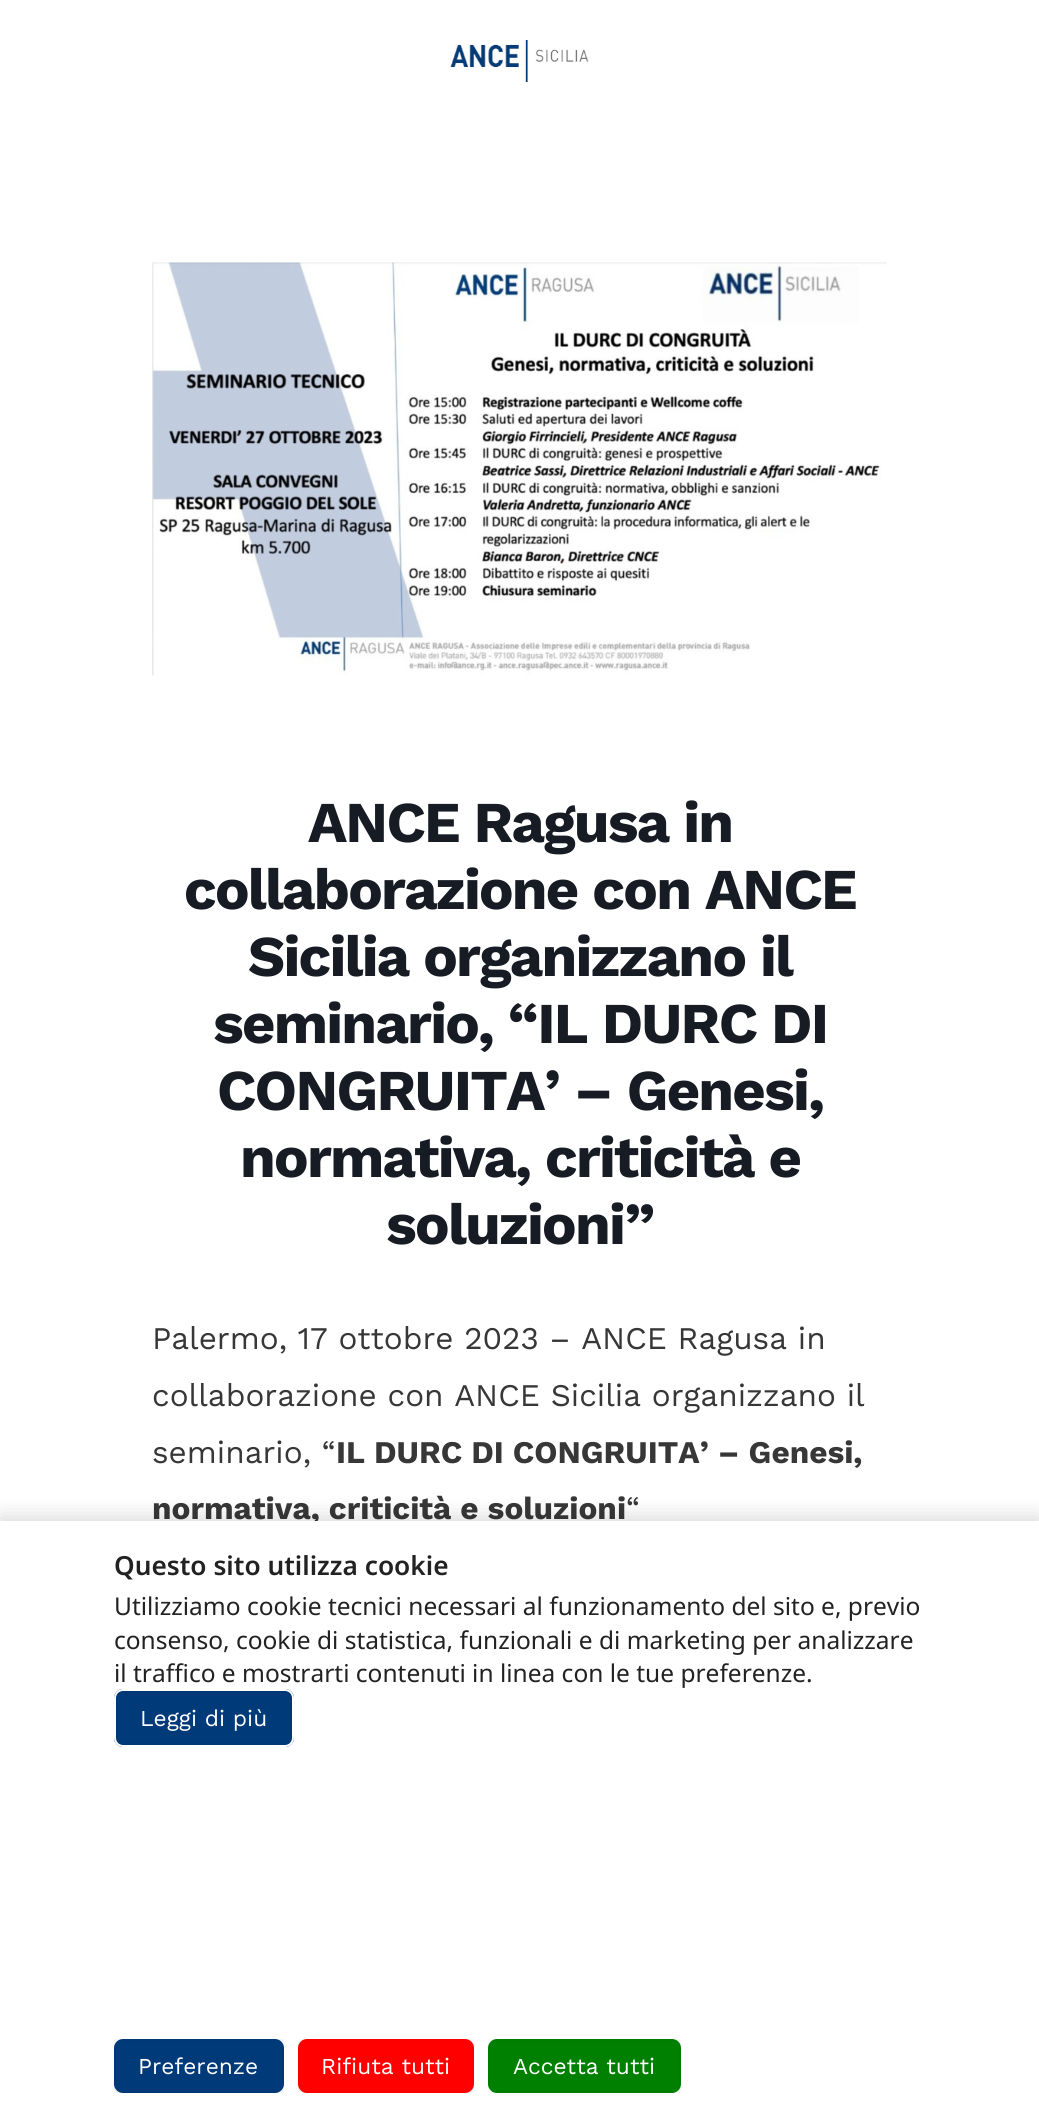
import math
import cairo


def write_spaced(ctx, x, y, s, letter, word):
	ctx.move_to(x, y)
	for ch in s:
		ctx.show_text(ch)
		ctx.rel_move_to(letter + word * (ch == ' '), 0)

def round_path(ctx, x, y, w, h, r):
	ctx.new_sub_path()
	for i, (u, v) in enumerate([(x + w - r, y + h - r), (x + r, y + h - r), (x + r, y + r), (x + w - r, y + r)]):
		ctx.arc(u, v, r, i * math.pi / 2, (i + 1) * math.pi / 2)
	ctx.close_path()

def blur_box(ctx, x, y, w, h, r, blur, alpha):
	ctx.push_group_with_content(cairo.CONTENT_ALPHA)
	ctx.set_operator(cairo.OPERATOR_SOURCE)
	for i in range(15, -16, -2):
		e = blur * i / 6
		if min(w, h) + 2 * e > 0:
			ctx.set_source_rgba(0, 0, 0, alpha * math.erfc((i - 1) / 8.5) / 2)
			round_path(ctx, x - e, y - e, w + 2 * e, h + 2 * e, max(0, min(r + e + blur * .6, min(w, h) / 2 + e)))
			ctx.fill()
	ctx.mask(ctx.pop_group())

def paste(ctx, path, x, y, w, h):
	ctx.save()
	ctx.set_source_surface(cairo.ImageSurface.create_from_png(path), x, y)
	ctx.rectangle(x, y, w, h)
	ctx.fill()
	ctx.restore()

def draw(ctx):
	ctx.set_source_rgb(1, 1, 1)
	ctx.paint()
	paste(ctx, 'media/1.png', 450, 40, 139, 42)
	paste(ctx, 'media/2.png', 152, 262, 735, 414)
	ctx.select_font_face('Work Sans', cairo.FONT_SLANT_NORMAL, cairo.FONT_WEIGHT_BOLD)
	ctx.set_font_size(57.75)
	ctx.set_source_rgb(0.09, 0.11, 0.141)
	for x, y, s in [
		(308, 842, 'ANCE Ragusa in'),
		(184, 909, 'collaborazione con ANCE'),
		(248, 976, 'Sicilia organizzano il'),
		(213, 1043, 'seminario, “IL DURC DI'),
		(217, 1110, 'CONGRUITA’ – Genesi,'),
		(240, 1177, 'normativa, criticità e'),
		(386, 1244, 'soluzioni”'),
	]:
		write_spaced(ctx, x, y, s, -1.75, 0)
	ctx.select_font_face('Work Sans')
	ctx.set_font_size(31.5)
	ctx.set_source_rgb(0.216, 0.216, 0.216)
	for x, y, s in [
		(152, 1349, 'Palermo, 17 ottobre 2023 – ANCE Ragusa in'),
		(152, 1406, 'collaborazione con ANCE Sicilia organizzano il'),
		(152, 1463, 'seminario, “'),
	]:
		ctx.move_to(x, y)
		ctx.show_text(s)
	ctx.select_font_face('Work Sans', cairo.FONT_SLANT_NORMAL, cairo.FONT_WEIGHT_BOLD)
	ctx.move_to(336, 1463)
	ctx.show_text('IL DURC DI CONGRUITA’ – Genesi,')
	ctx.move_to(152, 1519)
	ctx.show_text('normativa, criticità e soluzioni')
	ctx.select_font_face('Work Sans')
	ctx.move_to(626, 1519)
	ctx.show_text('“')
	ctx.set_source_rgb(0, 0, 0)
	blur_box(ctx, 0, 1517, 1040, 601, 0, 10.5, 0.15)
	ctx.set_source_rgb(1, 1, 1)
	ctx.rectangle(0, 1521, 1039, 600)
	ctx.fill()
	ctx.select_font_face('Noto Sans SemiBold')
	ctx.set_font_size(26.25)
	ctx.set_source_rgb(0.133, 0.133, 0.133)
	ctx.move_to(114, 1575)
	ctx.show_text('Questo sito utilizza cookie')
	ctx.select_font_face('Noto Sans')
	ctx.set_font_size(24.5)
	for x, y, s in [
		(114, 1615, 'Utilizziamo cookie tecnici necessari al funzionamento del sito e, previo'),
		(114, 1649, 'consenso, cookie di statistica, funzionali e di marketing per analizzare'),
		(114, 1682, 'il traffico e mostrarti contenuti in linea con le tue preferenze.'),
	]:
		ctx.move_to(x, y)
		ctx.show_text(s)
	ctx.set_source_rgb(0, 0.227, 0.475)
	round_path(ctx, 114, 1689, 180, 58, 9)
	ctx.fill()
	round_path(ctx, 117, 1692, 174, 52, 6)
	ctx.set_source_rgb(0, 0.22, 0.459)
	ctx.stroke()
	round_path(ctx, 115, 1690, 178, 56, 8)
	ctx.set_source_rgb(1, 1, 1)
	ctx.stroke()
	ctx.select_font_face('Work Sans')
	ctx.set_font_size(22.75)
	ctx.move_to(140, 1726)
	ctx.show_text('Leggi di più')
	ctx.set_source_rgb(0, 0.227, 0.475)
	round_path(ctx, 114, 2039, 170, 54, 9)
	ctx.fill()
	ctx.rectangle(115, 2040, 168, 52)
	ctx.set_source_rgba(0, 0, 0, 0.03)
	ctx.stroke()
	ctx.set_source_rgb(1, 1, 1)
	ctx.move_to(138, 2074)
	ctx.show_text('Preferenze')
	ctx.set_source_rgb(1, 0, 0)
	round_path(ctx, 298, 2039, 176, 54, 9)
	ctx.fill()
	ctx.rectangle(299, 2040, 174, 52)
	ctx.set_source_rgba(0, 0, 0, 0.03)
	ctx.stroke()
	ctx.set_source_rgb(1, 1, 1)
	ctx.move_to(321, 2074)
	ctx.show_text('Rifiuta tutti')
	ctx.set_source_rgb(0, 0.502, 0)
	round_path(ctx, 488, 2039, 193, 54, 9)
	ctx.fill()
	ctx.rectangle(489, 2040, 191, 52)
	ctx.set_source_rgba(0, 0, 0, 0.03)
	ctx.stroke()
	ctx.set_source_rgb(1, 1, 1)
	ctx.move_to(513, 2074)
	ctx.show_text('Accetta tutti')


surface = cairo.ImageSurface(cairo.FORMAT_RGB24, 1039, 2121)
ctx = cairo.Context(surface)
options = cairo.FontOptions()
options.set_hint_metrics(cairo.HINT_METRICS_OFF)
options.set_hint_style(cairo.HINT_STYLE_NONE)
ctx.set_font_options(options)
ctx.set_miter_limit(4)
draw(ctx)
surface.write_to_png('image.png')
